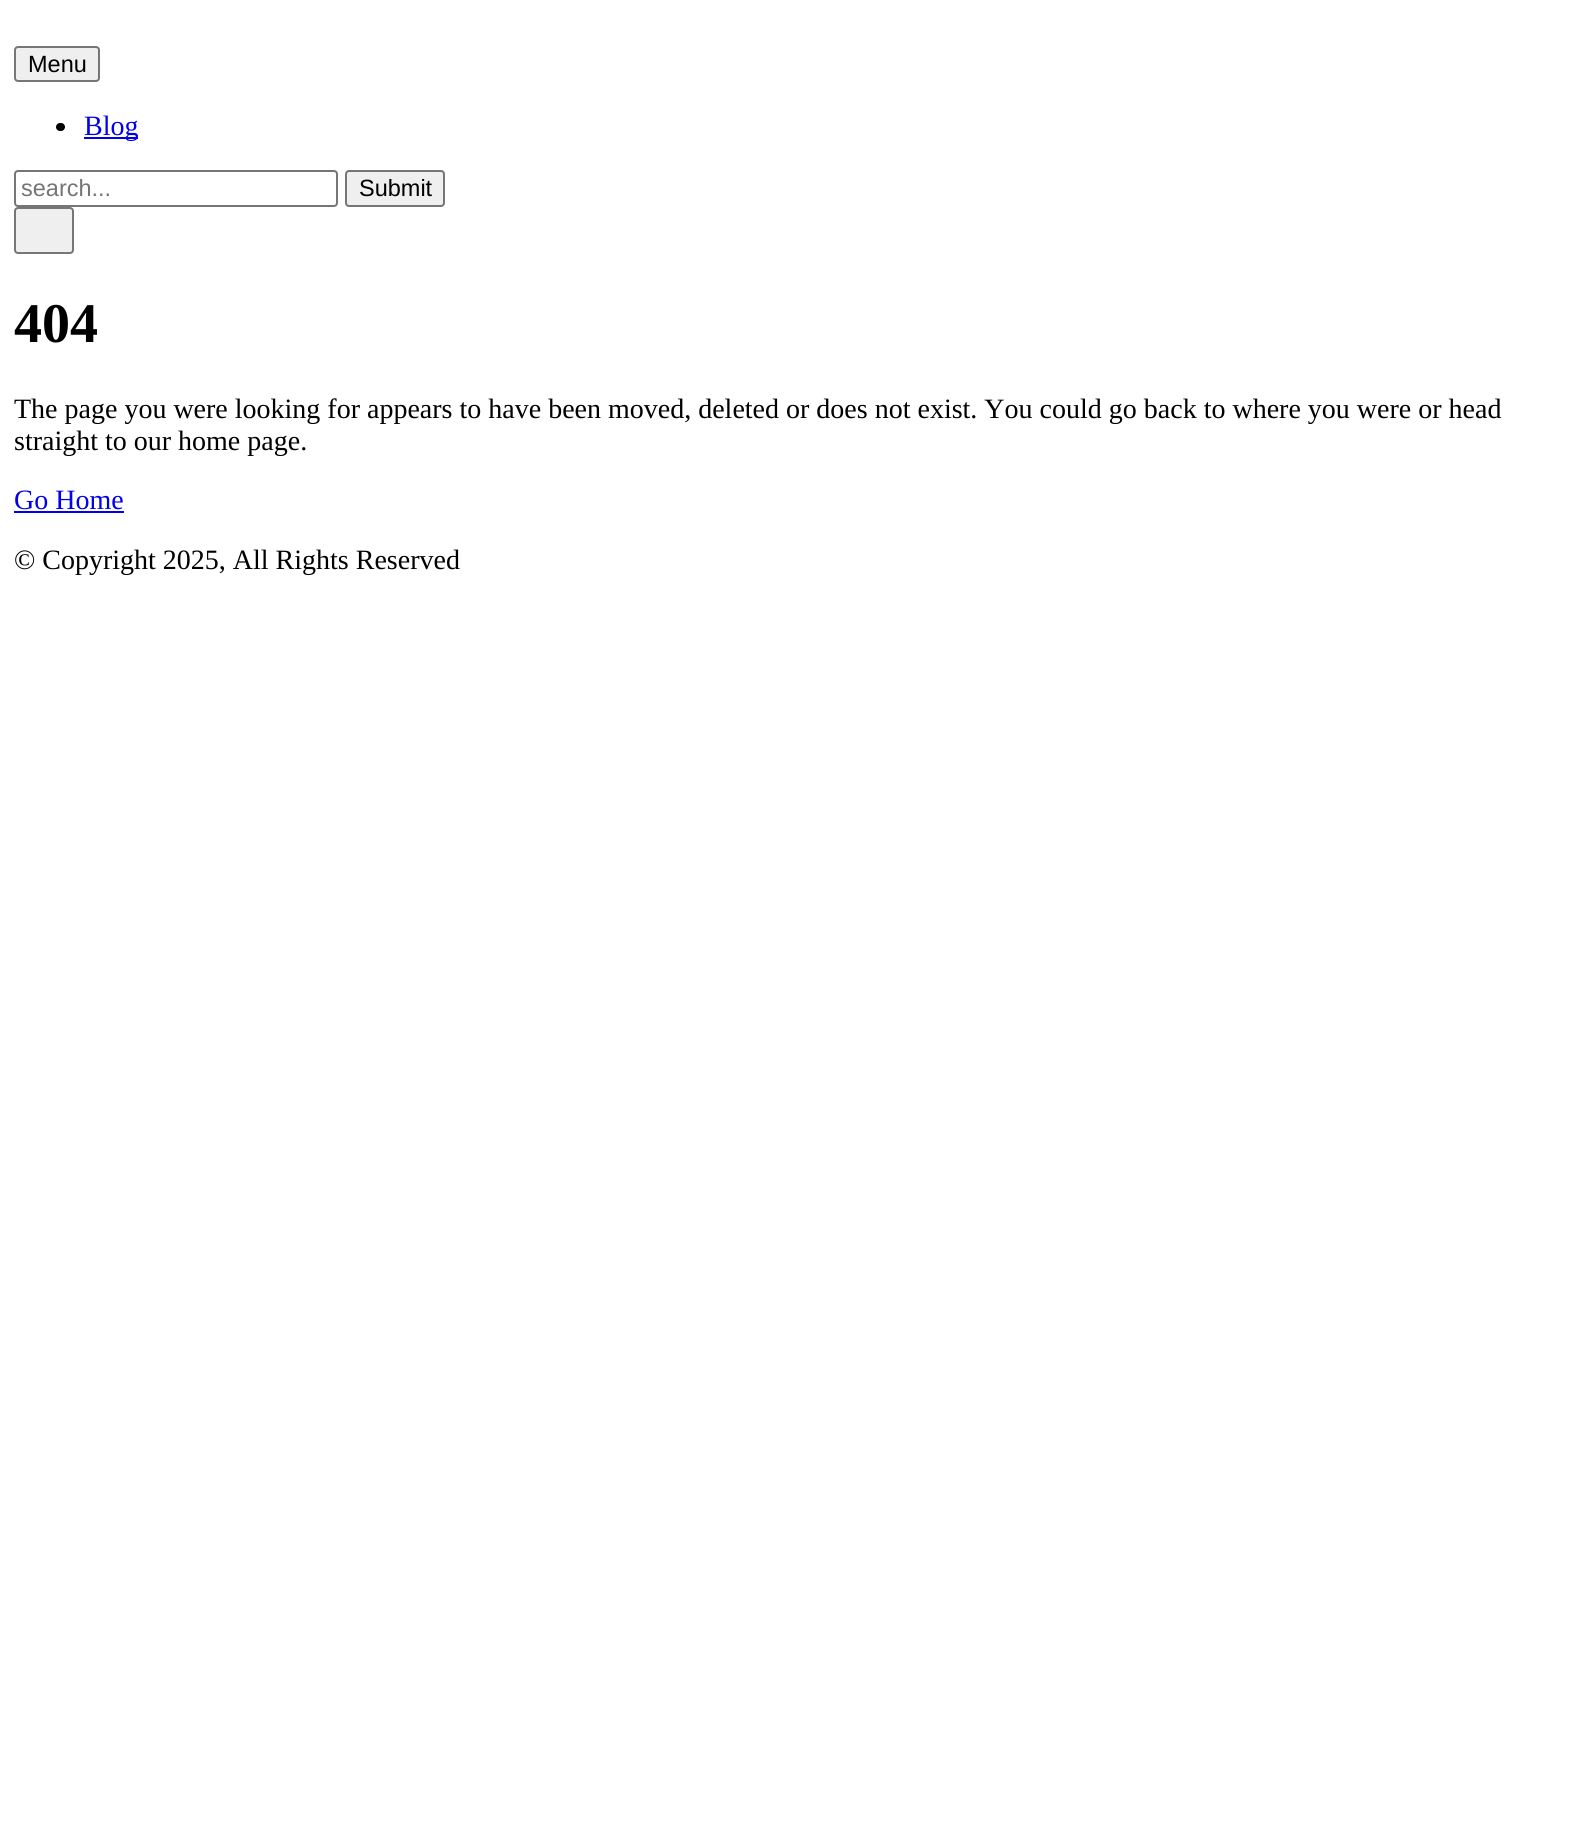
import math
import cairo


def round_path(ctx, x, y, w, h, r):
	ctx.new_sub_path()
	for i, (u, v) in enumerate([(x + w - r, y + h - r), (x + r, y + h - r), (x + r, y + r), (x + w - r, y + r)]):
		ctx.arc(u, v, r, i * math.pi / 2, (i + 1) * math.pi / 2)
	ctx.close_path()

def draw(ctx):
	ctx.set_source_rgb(1, 1, 1)
	ctx.paint()
	ctx.set_source_rgb(0.937, 0.937, 0.937)
	round_path(ctx, 15, 47, 84, 34, 3)
	ctx.fill_preserve()
	ctx.set_source_rgb(0.463, 0.463, 0.463)
	ctx.stroke()
	ctx.select_font_face('Liberation Sans')
	ctx.set_font_size(23.5)
	ctx.set_source_rgb(0, 0, 0)
	ctx.move_to(28, 72)
	ctx.show_text('Menu')
	round_path(ctx, 56, 123, 9, 8, 4)
	ctx.fill()
	ctx.set_source_rgb(0, 0, 0.933)
	ctx.rectangle(84, 137, 54, 2)
	ctx.fill()
	ctx.select_font_face('Liberation Serif')
	ctx.set_font_size(28)
	ctx.move_to(84, 135)
	ctx.show_text('Blog')
	round_path(ctx, 15, 171, 322, 35, 3)
	ctx.set_source_rgb(0.463, 0.463, 0.463)
	ctx.stroke()
	ctx.select_font_face('Liberation Sans')
	ctx.set_font_size(23.5)
	ctx.set_source_rgb(0.459, 0.459, 0.459)
	ctx.move_to(21, 196)
	ctx.show_text('search...')
	ctx.set_source_rgb(0.937, 0.937, 0.937)
	round_path(ctx, 346, 171, 98, 35, 3)
	ctx.fill_preserve()
	ctx.set_source_rgb(0.463, 0.463, 0.463)
	ctx.stroke()
	ctx.set_source_rgb(0, 0, 0)
	ctx.move_to(359, 196)
	ctx.show_text('Submit')
	ctx.set_source_rgb(0.937, 0.937, 0.937)
	round_path(ctx, 15, 208, 58, 45, 3)
	ctx.fill_preserve()
	ctx.set_source_rgb(0.463, 0.463, 0.463)
	ctx.stroke()
	ctx.select_font_face('Liberation Serif', cairo.FONT_SLANT_NORMAL, cairo.FONT_WEIGHT_BOLD)
	ctx.set_font_size(56)
	ctx.set_source_rgb(0, 0, 0)
	ctx.move_to(14, 342)
	ctx.show_text('404')
	ctx.select_font_face('Liberation Serif')
	ctx.set_font_size(28)
	ctx.move_to(14, 418)
	ctx.show_text('The page you were looking for appears to have been moved, deleted or does not exist. You could go back to where you were or head')
	ctx.move_to(14, 450)
	ctx.show_text('straight to our home page.')
	ctx.set_source_rgb(0, 0, 0.933)
	ctx.move_to(14, 509)
	ctx.show_text('Go Home')
	ctx.rectangle(14, 511, 110, 2)
	ctx.fill()
	ctx.set_source_rgb(0, 0, 0)
	ctx.move_to(14, 569)
	ctx.show_text('© Copyright 2025, All Rights Reserved')


surface = cairo.ImageSurface(cairo.FORMAT_RGB24, 1589, 1848)
ctx = cairo.Context(surface)
options = cairo.FontOptions()
options.set_hint_metrics(cairo.HINT_METRICS_OFF)
options.set_hint_style(cairo.HINT_STYLE_NONE)
ctx.set_font_options(options)
ctx.set_miter_limit(4)
draw(ctx)
surface.write_to_png('image.png')
